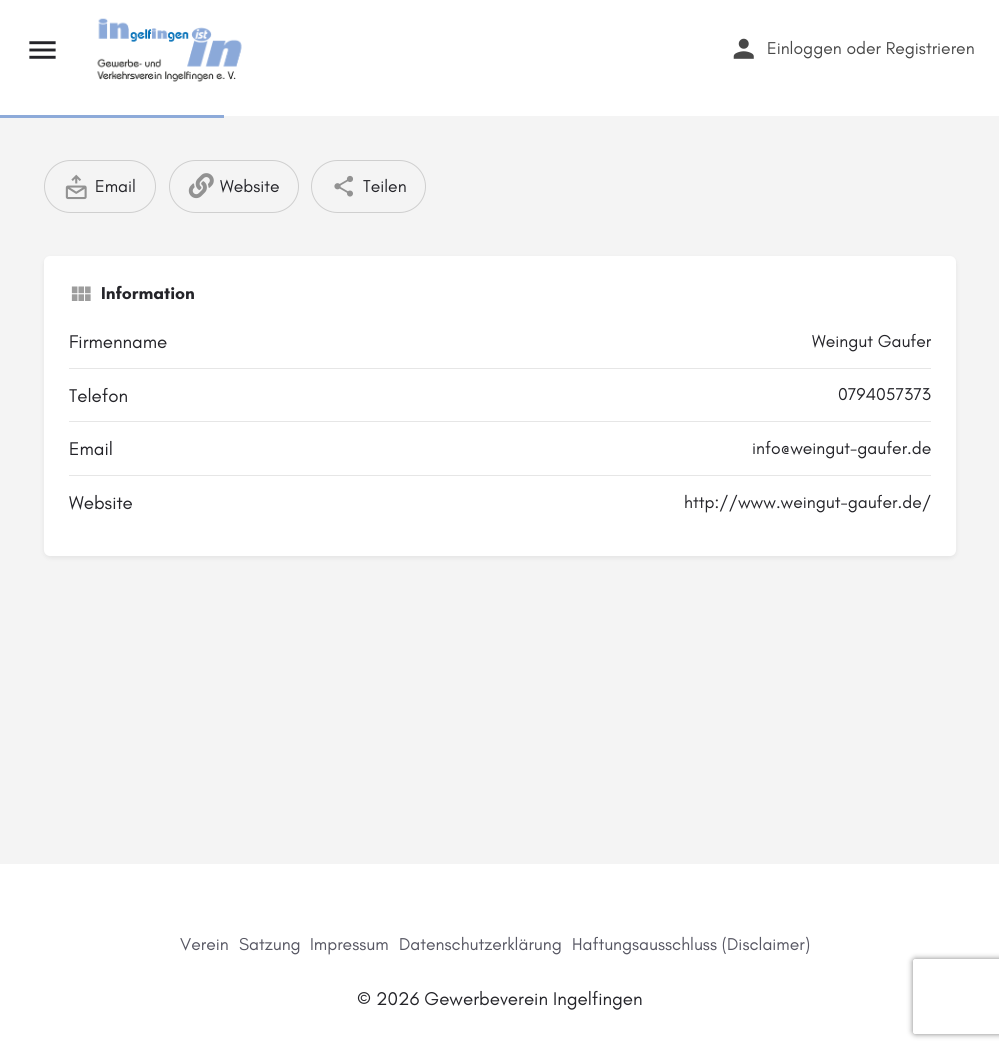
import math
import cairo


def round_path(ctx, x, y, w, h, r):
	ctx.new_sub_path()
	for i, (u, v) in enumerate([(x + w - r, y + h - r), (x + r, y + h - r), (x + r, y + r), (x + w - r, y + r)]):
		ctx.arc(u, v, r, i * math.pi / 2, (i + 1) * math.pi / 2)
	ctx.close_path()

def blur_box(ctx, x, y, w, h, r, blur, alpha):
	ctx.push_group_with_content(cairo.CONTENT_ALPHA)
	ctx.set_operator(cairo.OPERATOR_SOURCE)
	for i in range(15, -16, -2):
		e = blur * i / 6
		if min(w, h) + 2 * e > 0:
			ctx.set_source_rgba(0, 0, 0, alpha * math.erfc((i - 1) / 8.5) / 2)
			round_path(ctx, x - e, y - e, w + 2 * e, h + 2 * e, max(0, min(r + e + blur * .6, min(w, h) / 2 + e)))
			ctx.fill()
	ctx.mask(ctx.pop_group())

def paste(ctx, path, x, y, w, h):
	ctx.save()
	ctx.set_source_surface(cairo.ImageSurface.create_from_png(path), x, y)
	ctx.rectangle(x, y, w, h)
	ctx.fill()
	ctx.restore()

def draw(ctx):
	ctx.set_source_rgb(0.957, 0.957, 0.957)
	ctx.paint()
	ctx.set_source_rgb(1, 1, 1)
	ctx.rectangle(0, 0, 999, 116)
	ctx.fill()
	paste(ctx, 'media/1.png', 29, 41, 27, 18)
	paste(ctx, 'media/2.png', 97, 18, 145, 64)
	paste(ctx, 'media/3.png', 733, 38, 21, 21)
	ctx.select_font_face('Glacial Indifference')
	ctx.set_font_size(17.5)
	ctx.set_source_rgb(0.282, 0.282, 0.282)
	ctx.move_to(767, 54)
	ctx.show_text('Einloggen oder Registrieren')
	ctx.set_source_rgb(0.553, 0.667, 0.851)
	ctx.rectangle(0, 115, 224, 3)
	ctx.fill()
	round_path(ctx, 44.5, 160.5, 111, 52, 26)
	ctx.set_source_rgb(0.812, 0.812, 0.812)
	ctx.set_line_width(1)
	ctx.stroke()
	paste(ctx, 'media/4.png', 65, 174, 22, 26)
	ctx.set_source_rgb(0.141, 0.141, 0.161)
	ctx.move_to(95, 192)
	ctx.show_text('Email')
	round_path(ctx, 169.5, 160.5, 129, 52, 26)
	ctx.set_source_rgb(0.812, 0.812, 0.812)
	ctx.stroke()
	paste(ctx, 'media/5.png', 188, 173, 26, 26)
	ctx.set_source_rgb(0.141, 0.141, 0.161)
	ctx.move_to(220, 192)
	ctx.show_text('Website')
	round_path(ctx, 311.5, 160.5, 114, 52, 26)
	ctx.set_source_rgb(0.812, 0.812, 0.812)
	ctx.stroke()
	paste(ctx, 'media/6.png', 334, 175, 19, 22)
	ctx.set_source_rgb(0.141, 0.141, 0.161)
	ctx.move_to(363, 192)
	ctx.show_text('Teilen')
	ctx.set_source_rgb(0, 0, 0)
	blur_box(ctx, 44, 258, 912, 300, 6, 2.5, 0.07)
	ctx.set_source_rgb(1, 1, 1)
	round_path(ctx, 44, 256, 912, 300, 6)
	ctx.fill()
	paste(ctx, 'media/7.png', 71, 286, 20, 15)
	ctx.select_font_face('Glacial Indifference', cairo.FONT_SLANT_NORMAL, cairo.FONT_WEIGHT_BOLD)
	ctx.set_source_rgb(0.141, 0.141, 0.161)
	ctx.move_to(101, 299)
	ctx.show_text('Information')
	ctx.set_source_rgb(0.902, 0.902, 0.902)
	ctx.rectangle(69, 368, 862, 1)
	ctx.fill()
	ctx.select_font_face('Glacial Indifference')
	ctx.set_font_size(18.75)
	ctx.set_source_rgb(0.141, 0.141, 0.161)
	ctx.move_to(69, 348)
	ctx.show_text('Firmenname')
	ctx.set_font_size(17.5)
	ctx.move_to(812, 347)
	ctx.show_text('Weingut Gaufer')
	ctx.set_source_rgb(0.902, 0.902, 0.902)
	ctx.rectangle(69, 421, 862, 1)
	ctx.fill()
	ctx.set_font_size(18.75)
	ctx.set_source_rgb(0.141, 0.141, 0.161)
	ctx.move_to(69, 402)
	ctx.show_text('Telefon')
	ctx.set_font_size(17.5)
	ctx.move_to(838, 400)
	ctx.show_text('0794057373')
	ctx.set_source_rgb(0.902, 0.902, 0.902)
	ctx.rectangle(69, 475, 862, 1)
	ctx.fill()
	ctx.set_font_size(18.75)
	ctx.set_source_rgb(0.141, 0.141, 0.161)
	ctx.move_to(69, 455)
	ctx.show_text('Email')
	ctx.set_font_size(17.5)
	ctx.move_to(752, 454)
	ctx.show_text('info@weingut-gaufer.de')
	ctx.set_font_size(18.75)
	ctx.move_to(69, 509)
	ctx.show_text('Website')
	ctx.set_font_size(17.5)
	ctx.move_to(684, 508)
	ctx.show_text('http://www.weingut-gaufer.de/')
	ctx.set_source_rgb(1, 1, 1)
	ctx.rectangle(0, 864, 999, 187)
	ctx.fill()
	ctx.set_source_rgb(0.337, 0.337, 0.384)
	for x, y, s in [
		(180, 950, 'Verein'),
		(239, 950, 'Satzung'),
		(310, 950, 'Impressum'),
		(399, 950, 'Datenschutzerklärung'),
		(572, 950, 'Haftungsausschluss (Disclaimer)'),
	]:
		ctx.move_to(x, y)
		ctx.show_text(s)
	ctx.set_font_size(18.75)
	ctx.set_source_rgb(0.141, 0.141, 0.161)
	ctx.move_to(357, 1005)
	ctx.show_text('© 2026 Gewerbeverein Ingelfingen')
	ctx.save()
	ctx.set_fill_rule(cairo.FILL_RULE_EVEN_ODD)
	ctx.new_path()
	ctx.move_to(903, 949)
	ctx.line_to(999, 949)
	ctx.line_to(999, 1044)
	ctx.line_to(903, 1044)
	ctx.close_path()
	ctx.move_to(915.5, 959)
	ctx.line_to(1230.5, 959)
	ctx.curve_to(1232, 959, 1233, 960, 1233, 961.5)
	ctx.line_to(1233, 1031.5)
	ctx.curve_to(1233, 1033, 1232, 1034, 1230.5, 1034)
	ctx.line_to(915.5, 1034)
	ctx.curve_to(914, 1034, 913, 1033, 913, 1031.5)
	ctx.line_to(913, 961.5)
	ctx.curve_to(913, 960, 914, 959, 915.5, 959)
	ctx.close_path()
	ctx.clip()
	ctx.set_source_rgb(0.502, 0.502, 0.502)
	blur_box(ctx, 913, 959, 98, 75, 2.5, 3, 1)
	ctx.restore()


surface = cairo.ImageSurface(cairo.FORMAT_RGB24, 999, 1051)
ctx = cairo.Context(surface)
options = cairo.FontOptions()
options.set_hint_metrics(cairo.HINT_METRICS_OFF)
options.set_hint_style(cairo.HINT_STYLE_NONE)
ctx.set_font_options(options)
ctx.set_miter_limit(4)
draw(ctx)
surface.write_to_png('image.png')
